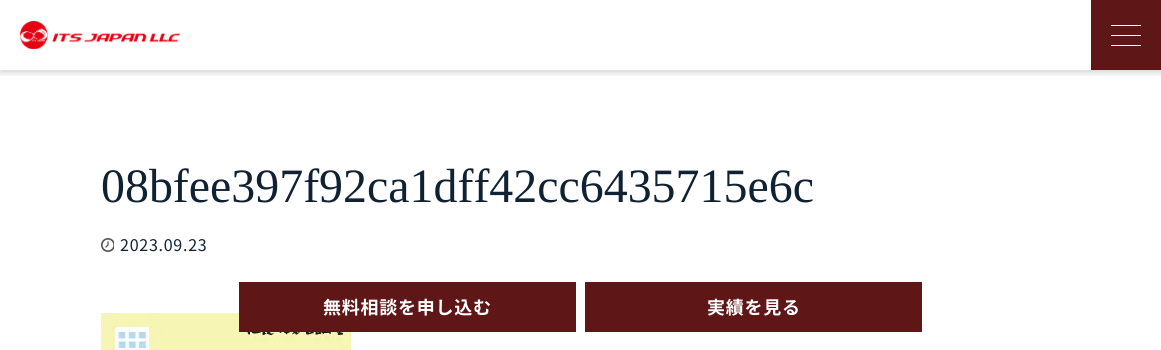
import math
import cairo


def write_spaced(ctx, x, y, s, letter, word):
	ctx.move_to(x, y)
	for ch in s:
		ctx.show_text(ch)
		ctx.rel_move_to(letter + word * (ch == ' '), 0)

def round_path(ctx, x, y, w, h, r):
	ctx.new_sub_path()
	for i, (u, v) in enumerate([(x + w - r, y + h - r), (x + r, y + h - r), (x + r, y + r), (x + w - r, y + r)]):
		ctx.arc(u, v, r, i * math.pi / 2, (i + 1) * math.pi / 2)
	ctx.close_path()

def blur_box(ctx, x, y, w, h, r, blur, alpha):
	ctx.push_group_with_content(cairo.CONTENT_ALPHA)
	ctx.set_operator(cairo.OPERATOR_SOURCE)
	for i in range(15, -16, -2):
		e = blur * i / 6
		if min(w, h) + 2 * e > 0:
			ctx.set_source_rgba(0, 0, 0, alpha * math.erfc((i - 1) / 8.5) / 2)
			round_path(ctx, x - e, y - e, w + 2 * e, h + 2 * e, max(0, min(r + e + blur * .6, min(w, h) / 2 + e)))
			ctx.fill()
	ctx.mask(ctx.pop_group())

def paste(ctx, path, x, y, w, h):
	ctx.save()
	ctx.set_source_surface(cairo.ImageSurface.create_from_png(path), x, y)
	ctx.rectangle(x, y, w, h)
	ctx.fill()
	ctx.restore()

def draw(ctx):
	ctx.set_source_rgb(1, 1, 1)
	ctx.paint()
	ctx.select_font_face('Liberation Serif')
	ctx.set_font_size(47.9)
	ctx.set_source_rgb(0.059, 0.129, 0.2)
	ctx.move_to(101, 202)
	ctx.show_text('08bfee397f92ca1dff42cc6435715e6c')
	paste(ctx, 'media/1.png', 101, 238, 13, 14)
	ctx.select_font_face('Noto Sans JP')
	ctx.set_font_size(16)
	write_spaced(ctx, 120, 251, '2023.09.23', 0.75, 0)
	paste(ctx, 'media/2.png', 101, 313, 250, 37)
	ctx.save()
	ctx.rectangle(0, 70, 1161, 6)
	ctx.clip()
	ctx.set_source_rgb(0, 0, 0)
	blur_box(ctx, 0, 3, 1161, 70, 0, 3, 0.16)
	ctx.restore()
	paste(ctx, 'media/3.png', 20, 21, 160, 28)
	ctx.set_source_rgb(0.369, 0.086, 0.086)
	ctx.rectangle(1091, 0, 70, 70)
	ctx.fill()
	ctx.set_source_rgb(1, 1, 1)
	ctx.rectangle(1111, 25, 30, 1)
	ctx.rectangle(1111, 35, 30, 1)
	ctx.rectangle(1111, 45, 30, 1)
	ctx.fill()
	ctx.set_source_rgb(0.369, 0.086, 0.086)
	ctx.rectangle(239, 282, 337, 50)
	ctx.fill()
	ctx.select_font_face('Noto Sans JP', cairo.FONT_SLANT_NORMAL, cairo.FONT_WEIGHT_BOLD)
	ctx.set_font_size(18)
	ctx.set_source_rgb(1, 1, 1)
	write_spaced(ctx, 323, 314, '無料相談を申し込む', 0.75, 0)
	ctx.set_source_rgb(0.369, 0.086, 0.086)
	ctx.rectangle(585, 282, 337, 50)
	ctx.fill()
	ctx.set_source_rgb(1, 1, 1)
	write_spaced(ctx, 707, 314, '実績を見る', 0.75, 0)


surface = cairo.ImageSurface(cairo.FORMAT_RGB24, 1161, 350)
ctx = cairo.Context(surface)
options = cairo.FontOptions()
options.set_hint_metrics(cairo.HINT_METRICS_OFF)
options.set_hint_style(cairo.HINT_STYLE_NONE)
ctx.set_font_options(options)
ctx.set_miter_limit(4)
draw(ctx)
surface.write_to_png('image.png')
